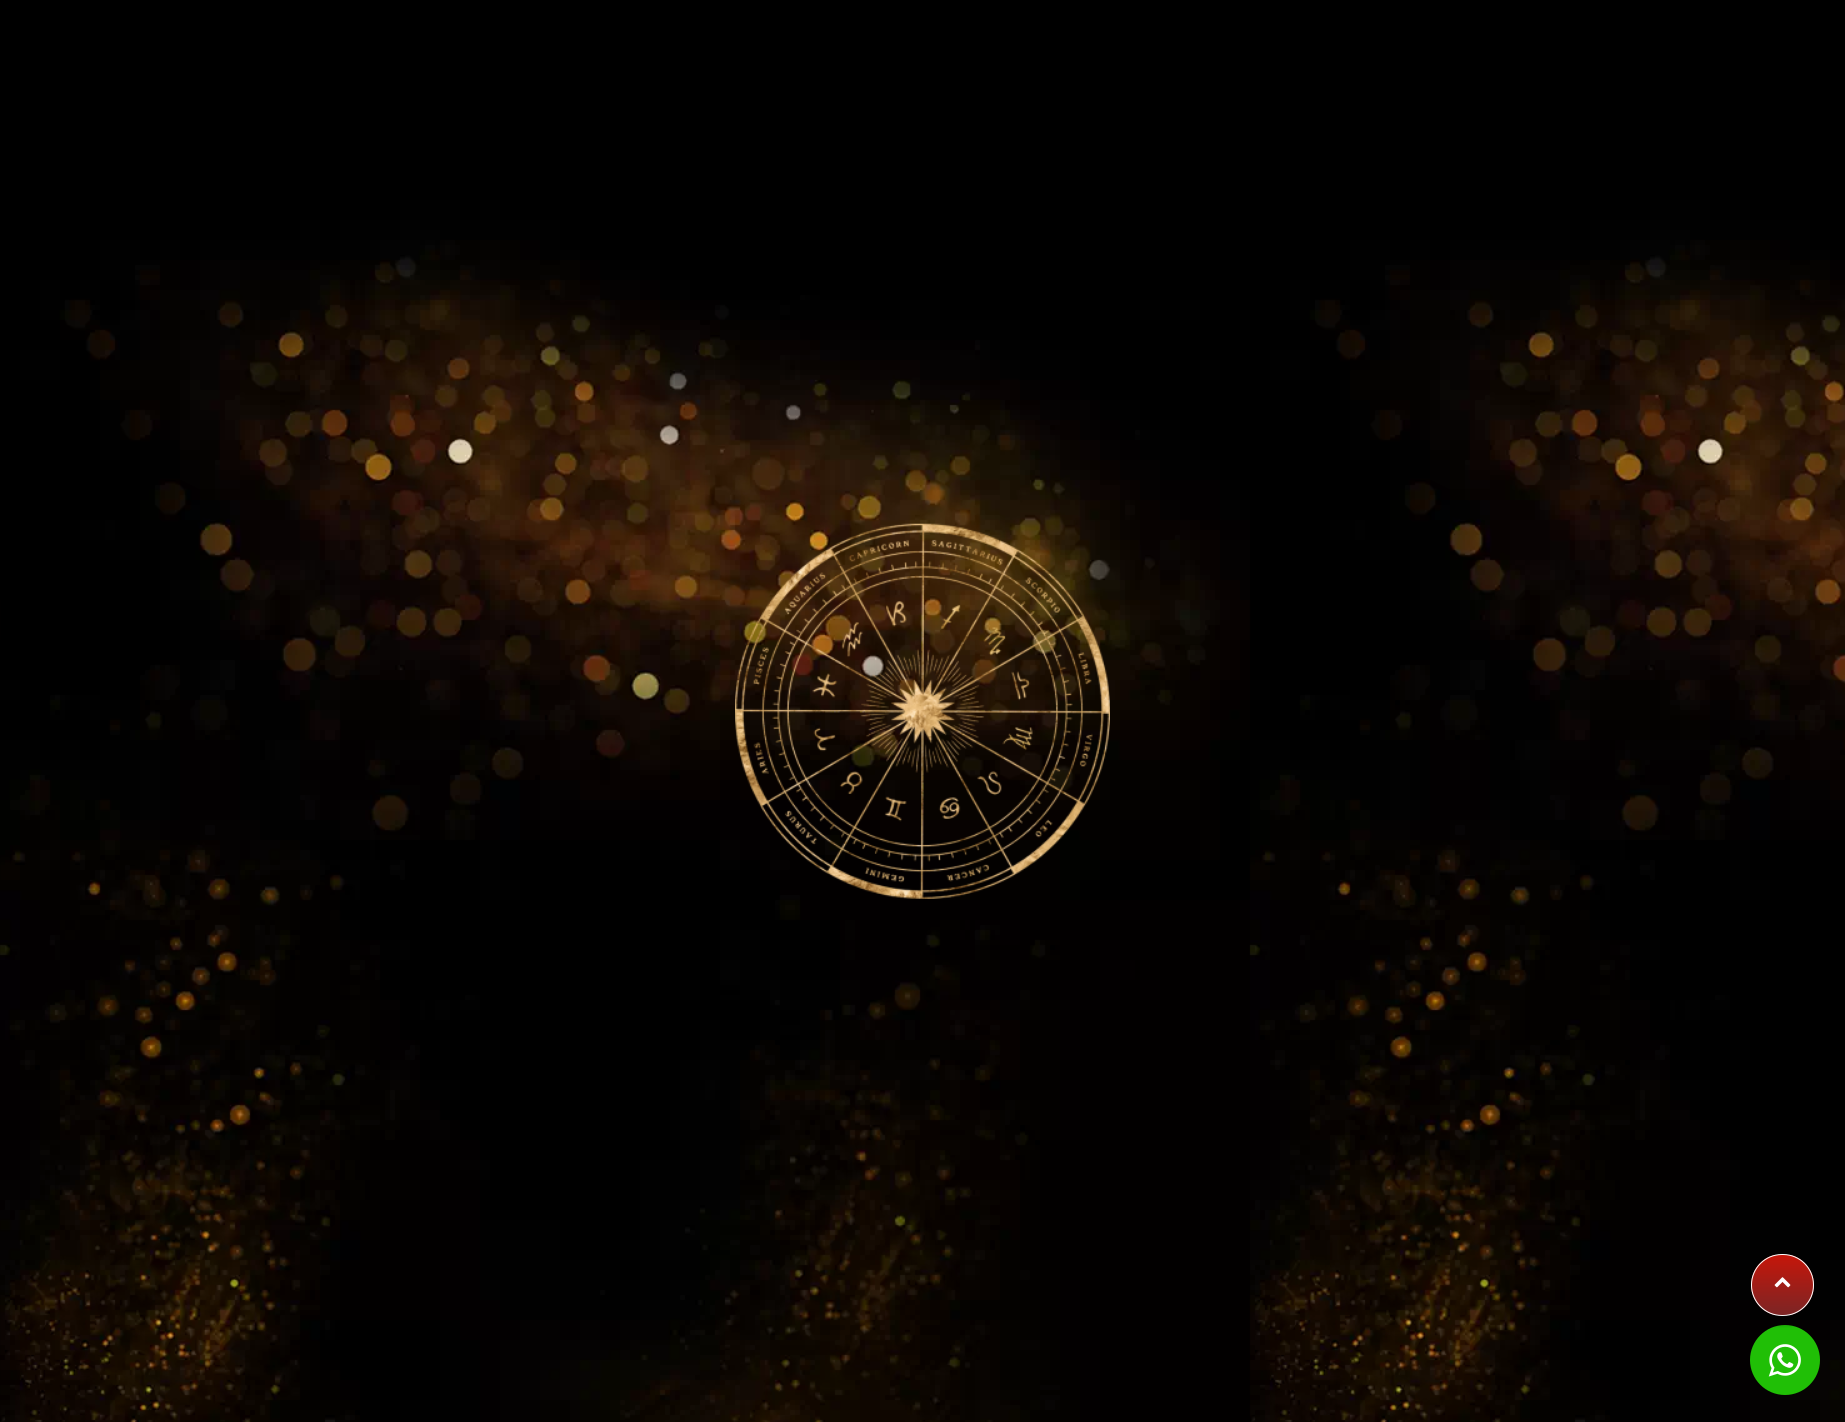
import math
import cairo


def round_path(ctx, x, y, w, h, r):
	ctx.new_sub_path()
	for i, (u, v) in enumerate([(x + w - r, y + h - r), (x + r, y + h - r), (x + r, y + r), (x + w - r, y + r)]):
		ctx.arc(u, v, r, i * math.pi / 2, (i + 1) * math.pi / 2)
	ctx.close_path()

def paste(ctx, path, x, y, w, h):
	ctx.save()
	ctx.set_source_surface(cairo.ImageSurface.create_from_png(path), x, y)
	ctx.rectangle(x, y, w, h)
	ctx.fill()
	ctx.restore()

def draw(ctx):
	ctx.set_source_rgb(1, 1, 1)
	ctx.paint()
	paste(ctx, 'media/1.png', 0, 0, 1845, 1422)
	paste(ctx, 'media/2.png', 735, 523, 375, 376)
	ctx.save()
	round_path(ctx, 1751, 1254, 63, 62, 31)
	ctx.clip()
	gradient = cairo.LinearGradient(1783, 1255, 1783, 1315)
	gradient.add_color_stop_rgba(0, 0.773, 0.086, 0.039, 1)
	gradient.add_color_stop_rgba(1, 0.486, 0.145, 0.145, 1)
	ctx.set_source(gradient)
	ctx.rectangle(1751, 1255, 63, 60)
	ctx.fill()
	ctx.restore()
	round_path(ctx, 1751.5, 1254.5, 62, 61, 30.5)
	ctx.set_source_rgb(1, 1, 1)
	ctx.set_line_width(1)
	ctx.stroke()
	paste(ctx, 'media/3.png', 1774, 1277, 17, 11)
	ctx.set_source_rgb(0.125, 0.749, 0.027)
	ctx.arc(1785, 1360, 35, 0, 2 * math.pi)
	ctx.fill()
	gradient = cairo.RadialGradient(0, 0, 0, 0, 0, 1)
	gradient.set_matrix(cairo.Matrix(1 / 39, 0, 0, 1 / 9, -1 * 1783 / 39, -1 * 1321 / 9))
	gradient.add_color_stop_rgba(0, 0, 0, 0, 0.25)
	gradient.add_color_stop_rgba(0.8, 0, 0, 0, 0)
	ctx.set_source(gradient)
	ctx.rectangle(1774, 1315, 22, 13)
	ctx.fill()
	paste(ctx, 'media/4.png', 1768, 1344, 33, 33)


surface = cairo.ImageSurface(cairo.FORMAT_RGB24, 1845, 1422)
ctx = cairo.Context(surface)
options = cairo.FontOptions()
options.set_hint_metrics(cairo.HINT_METRICS_OFF)
options.set_hint_style(cairo.HINT_STYLE_NONE)
ctx.set_font_options(options)
ctx.set_miter_limit(4)
draw(ctx)
surface.write_to_png('image.png')
